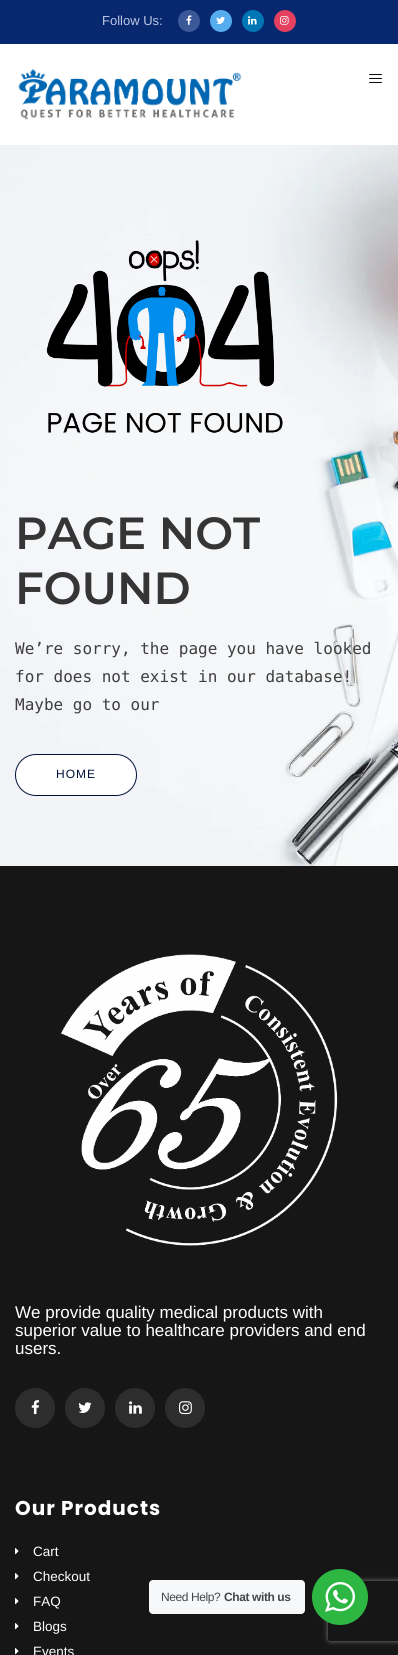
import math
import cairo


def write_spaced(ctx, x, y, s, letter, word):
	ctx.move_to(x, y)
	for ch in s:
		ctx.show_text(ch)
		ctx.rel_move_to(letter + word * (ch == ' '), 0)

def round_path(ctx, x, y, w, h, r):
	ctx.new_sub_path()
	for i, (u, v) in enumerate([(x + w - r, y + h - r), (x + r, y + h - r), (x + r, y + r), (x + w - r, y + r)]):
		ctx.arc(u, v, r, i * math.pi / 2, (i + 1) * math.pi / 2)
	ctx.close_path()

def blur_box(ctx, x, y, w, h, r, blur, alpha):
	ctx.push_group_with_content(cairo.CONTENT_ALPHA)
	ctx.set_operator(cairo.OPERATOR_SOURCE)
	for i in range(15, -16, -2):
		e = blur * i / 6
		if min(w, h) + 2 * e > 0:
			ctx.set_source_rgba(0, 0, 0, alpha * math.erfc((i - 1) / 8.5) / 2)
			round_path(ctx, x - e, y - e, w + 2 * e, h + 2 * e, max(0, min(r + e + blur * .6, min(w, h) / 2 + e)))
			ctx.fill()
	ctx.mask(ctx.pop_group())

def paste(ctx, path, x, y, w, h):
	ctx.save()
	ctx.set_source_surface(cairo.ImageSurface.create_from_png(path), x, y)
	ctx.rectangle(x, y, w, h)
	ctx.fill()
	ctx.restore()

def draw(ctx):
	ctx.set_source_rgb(1, 1, 1)
	ctx.paint()
	ctx.set_source_rgb(0.031, 0.153, 0.431)
	ctx.rectangle(0, 0, 398, 44)
	ctx.fill()
	ctx.select_font_face('Liberation Sans')
	ctx.set_font_size(13)
	ctx.set_source_rgb(0.737, 0.784, 0.894)
	ctx.move_to(102, 25)
	ctx.show_text('Follow Us:')
	ctx.set_source_rgb(0.231, 0.349, 0.6)
	ctx.new_path()
	ctx.arc(189, 21, 11, 0, 2 * math.pi)
	ctx.fill()
	paste(ctx, 'media/1.png', 186, 15, 6, 10)
	ctx.set_source_rgb(0.333, 0.675, 0.933)
	ctx.arc(221, 21, 11, 0, 2 * math.pi)
	ctx.fill()
	paste(ctx, 'media/2.png', 216, 16, 9, 8)
	ctx.set_source_rgb(0, 0.467, 0.71)
	ctx.arc(253, 21, 11, 0, 2 * math.pi)
	ctx.fill()
	paste(ctx, 'media/3.png', 248, 16, 9, 9)
	ctx.set_source_rgb(0.894, 0.251, 0.373)
	ctx.arc(285, 21, 11, 0, 2 * math.pi)
	ctx.fill()
	paste(ctx, 'media/4.png', 280, 16, 9, 9)
	paste(ctx, 'media/5.png', 18, 68, 224, 52)
	paste(ctx, 'media/6.png', 369, 74, 13, 9)
	paste(ctx, 'media/7.png', 0, 145, 398, 721)
	paste(ctx, 'media/8.png', 46, 240, 237, 193)
	ctx.select_font_face('Montserrat SemiBold')
	ctx.set_font_size(45)
	ctx.set_source_rgb(0.208, 0.208, 0.208)
	ctx.move_to(15, 549)
	ctx.show_text('PAGE NOT')
	ctx.move_to(15, 604)
	ctx.show_text('FOUND')
	ctx.select_font_face('DejaVu Sans Mono')
	ctx.set_font_size(16)
	ctx.set_source_rgb(0.243, 0.243, 0.243)
	for x, y, s in [
		(15, 654, 'We’re sorry, the page you have looked'),
		(15, 682, 'for does not exist in our database!'),
		(15, 710, 'Maybe go to our'),
	]:
		ctx.move_to(x, y)
		ctx.show_text(s)
	ctx.set_source_rgb(1, 1, 1)
	round_path(ctx, 15.5, 754.5, 121, 41, 20.5)
	ctx.fill_preserve()
	ctx.set_source_rgb(0, 0.067, 0.224)
	ctx.set_line_width(1)
	ctx.stroke()
	ctx.select_font_face('Liberation Sans')
	ctx.set_font_size(12)
	write_spaced(ctx, 56, 778, 'HOME', 1, 0)
	ctx.set_source_rgb(0.086, 0.086, 0.086)
	ctx.rectangle(0, 866, 398, 789)
	ctx.fill()
	paste(ctx, 'media/9.png', 61, 954, 277, 292)
	ctx.set_font_size(17)
	ctx.set_source_rgb(1, 1, 1)
	for x, y, s in [
		(15, 1318, 'We provide quality medical products with'),
		(15, 1336, 'superior value to healthcare providers and end'),
		(15, 1354, 'users.'),
	]:
		ctx.move_to(x, y)
		ctx.show_text(s)
	ctx.set_source_rgb(0.176, 0.176, 0.176)
	ctx.new_path()
	ctx.arc(35, 1408, 20, 0, 2 * math.pi)
	ctx.fill()
	paste(ctx, 'media/10.png', 31, 1400, 9, 15)
	ctx.arc(85, 1408, 20, 0, 2 * math.pi)
	ctx.fill()
	paste(ctx, 'media/11.png', 78, 1402, 14, 11)
	ctx.arc(135, 1408, 20, 0, 2 * math.pi)
	ctx.fill()
	paste(ctx, 'media/12.png', 129, 1401, 13, 13)
	ctx.arc(185, 1408, 20, 0, 2 * math.pi)
	ctx.fill()
	paste(ctx, 'media/13.png', 179, 1401, 13, 14)
	ctx.select_font_face('Poppins', cairo.FONT_SLANT_NORMAL, cairo.FONT_WEIGHT_BOLD)
	ctx.set_font_size(20)
	ctx.set_source_rgb(1, 1, 1)
	write_spaced(ctx, 15, 1515, 'Our Products', 1, 0)
	paste(ctx, 'media/14.png', 15, 1548, 4, 7)
	ctx.select_font_face('Liberation Sans')
	ctx.set_font_size(13.5)
	ctx.move_to(33, 1556)
	ctx.show_text('Cart')
	paste(ctx, 'media/14.png', 15, 1573, 4, 7)
	ctx.move_to(33, 1581)
	ctx.show_text('Checkout')
	paste(ctx, 'media/14.png', 15, 1598, 4, 7)
	ctx.move_to(33, 1606)
	ctx.show_text('FAQ')
	paste(ctx, 'media/14.png', 15, 1623, 4, 7)
	ctx.move_to(33, 1631)
	ctx.show_text('Blogs')
	paste(ctx, 'media/14.png', 15, 1648, 4, 7)
	ctx.move_to(33, 1656)
	ctx.show_text('Events')
	ctx.set_source_rgb(0.961, 0.969, 0.976)
	round_path(ctx, 149, 1580, 156, 34, 4)
	ctx.fill()
	ctx.set_font_size(12)
	ctx.set_source_rgb(0.263, 0.278, 0.306)
	write_spaced(ctx, 161, 1601, 'Need Help?', -0.4, 0)
	ctx.select_font_face('Liberation Sans', cairo.FONT_SLANT_NORMAL, cairo.FONT_WEIGHT_BOLD)
	write_spaced(ctx, 224, 1601, 'Chat with us', -0.4, 0)
	ctx.save()
	ctx.set_fill_rule(cairo.FILL_RULE_EVEN_ODD)
	ctx.new_path()
	ctx.move_to(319, 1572)
	ctx.line_to(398, 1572)
	ctx.line_to(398, 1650)
	ctx.line_to(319, 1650)
	ctx.close_path()
	ctx.move_to(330, 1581)
	ctx.line_to(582, 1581)
	ctx.curve_to(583, 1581, 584, 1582, 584, 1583)
	ctx.line_to(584, 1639)
	ctx.curve_to(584, 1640, 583, 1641, 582, 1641)
	ctx.line_to(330, 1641)
	ctx.curve_to(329, 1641, 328, 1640, 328, 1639)
	ctx.line_to(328, 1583)
	ctx.curve_to(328, 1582, 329, 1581, 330, 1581)
	ctx.close_path()
	ctx.clip()
	ctx.set_source_rgb(0.502, 0.502, 0.502)
	blur_box(ctx, 328, 1581, 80, 60, 2, 2.5, 1)
	ctx.restore()
	ctx.set_source_rgb(0.176, 0.718, 0.259)
	ctx.arc(340, 1597, 28, 0, 2 * math.pi)
	ctx.fill()
	paste(ctx, 'media/15.png', 325, 1582, 30, 30)


surface = cairo.ImageSurface(cairo.FORMAT_RGB24, 398, 1655)
ctx = cairo.Context(surface)
options = cairo.FontOptions()
options.set_hint_metrics(cairo.HINT_METRICS_OFF)
options.set_hint_style(cairo.HINT_STYLE_NONE)
ctx.set_font_options(options)
ctx.set_miter_limit(4)
draw(ctx)
surface.write_to_png('image.png')
